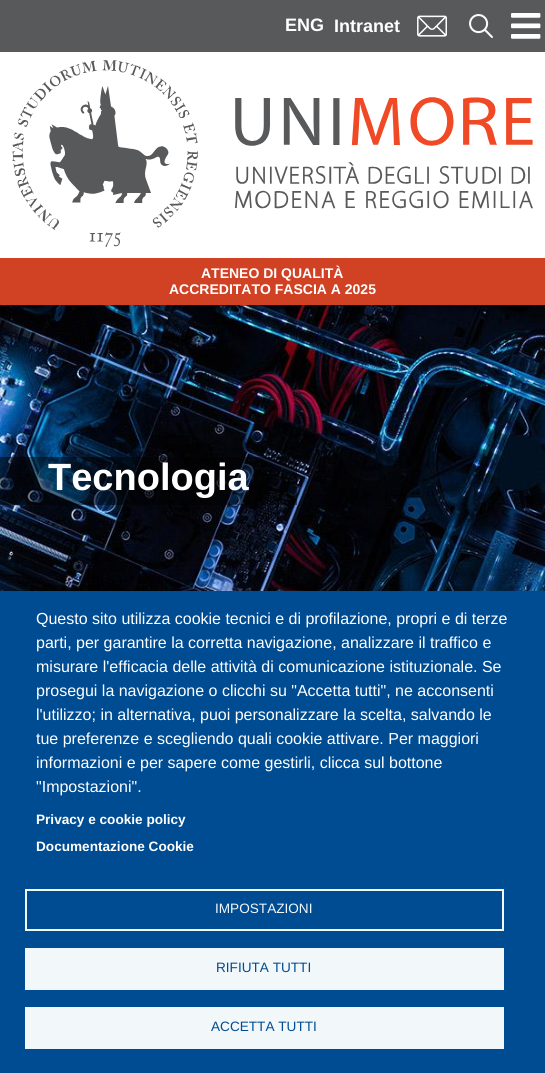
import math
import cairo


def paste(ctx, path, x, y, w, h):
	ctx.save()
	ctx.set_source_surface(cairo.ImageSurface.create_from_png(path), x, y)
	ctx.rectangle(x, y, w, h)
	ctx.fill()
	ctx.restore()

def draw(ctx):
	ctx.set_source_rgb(1, 1, 1)
	ctx.paint()
	ctx.set_source_rgb(0.345, 0.349, 0.357)
	ctx.rectangle(0, 0, 545, 52)
	ctx.fill()
	ctx.select_font_face('Liberation Sans', cairo.FONT_SLANT_NORMAL, cairo.FONT_WEIGHT_BOLD)
	ctx.set_font_size(18)
	ctx.set_source_rgb(1, 1, 1)
	ctx.move_to(285, 31)
	ctx.show_text('ENG')
	ctx.move_to(334, 32)
	ctx.show_text('Intranet')
	paste(ctx, 'media/1.png', 417, 15, 30, 22)
	paste(ctx, 'media/2.png', 469, 14, 24, 24)
	paste(ctx, 'media/3.png', 511, 13, 30, 26)
	paste(ctx, 'media/4.png', 12, 60, 521, 187)
	ctx.set_source_rgb(0.82, 0.255, 0.141)
	ctx.rectangle(0, 258, 545, 47)
	ctx.fill()
	ctx.set_font_size(14)
	ctx.set_source_rgb(1, 1, 1)
	ctx.move_to(201, 278)
	ctx.show_text('ATENEO DI QUALITÀ')
	ctx.move_to(169, 294)
	ctx.show_text('ACCREDITATO FASCIA A 2025')
	paste(ctx, 'media/5.png', 0, 305, 545, 286)
	ctx.set_source_rgba(0, 0, 0, 0.49)
	ctx.rectangle(0, 457, 297, 48)
	ctx.fill()
	ctx.set_font_size(38)
	ctx.set_source_rgb(1, 1, 1)
	ctx.move_to(48, 490)
	ctx.show_text('Tecnologia')
	ctx.set_source_rgb(0, 0.298, 0.576)
	ctx.rectangle(0, 591, 545, 482)
	ctx.fill()
	ctx.select_font_face('Liberation Sans')
	ctx.set_font_size(16)
	ctx.set_source_rgb(1, 1, 1)
	for x, y, s in [
		(36, 624, 'Questo sito utilizza cookie tecnici e di profilazione, propri e di terze'),
		(36, 648, 'parti, per garantire la corretta navigazione, analizzare il traffico e'),
		(36, 672, 'misurare l\'efficacia delle attività di comunicazione istituzionale. Se'),
		(36, 696, 'prosegui la navigazione o clicchi su "Accetta tutti", ne acconsenti'),
		(36, 720, 'l\'utilizzo; in alternativa, puoi personalizzare la scelta, salvando le'),
		(36, 744, 'tue preferenze e scegliendo quali cookie attivare. Per maggiori'),
		(36, 768, 'informazioni e per sapere come gestirli, clicca sul bottone'),
		(36, 792, '"Impostazioni".'),
	]:
		ctx.move_to(x, y)
		ctx.show_text(s)
	ctx.select_font_face('Liberation Sans', cairo.FONT_SLANT_NORMAL, cairo.FONT_WEIGHT_BOLD)
	ctx.set_font_size(13.6)
	ctx.move_to(36, 824)
	ctx.show_text('Privacy e cookie policy')
	ctx.move_to(36, 851)
	ctx.show_text('Documentazione Cookie')
	ctx.rectangle(26, 890, 477, 40)
	ctx.set_source_rgb(0.949, 0.965, 0.98)
	ctx.stroke()
	ctx.select_font_face('Liberation Sans')
	ctx.move_to(215, 913)
	ctx.show_text('IMPOSTAZIONI')
	ctx.rectangle(25, 948, 479, 42)
	ctx.fill()
	ctx.set_source_rgb(0, 0.298, 0.576)
	ctx.move_to(216, 972)
	ctx.show_text('RIFIUTA TUTTI')
	ctx.set_source_rgb(0.949, 0.965, 0.98)
	ctx.rectangle(25, 1007, 479, 42)
	ctx.fill()
	ctx.set_source_rgb(0, 0.298, 0.576)
	ctx.move_to(211, 1031)
	ctx.show_text('ACCETTA TUTTI')


surface = cairo.ImageSurface(cairo.FORMAT_RGB24, 545, 1073)
ctx = cairo.Context(surface)
options = cairo.FontOptions()
options.set_hint_metrics(cairo.HINT_METRICS_OFF)
options.set_hint_style(cairo.HINT_STYLE_NONE)
ctx.set_font_options(options)
ctx.set_miter_limit(4)
draw(ctx)
surface.write_to_png('image.png')
